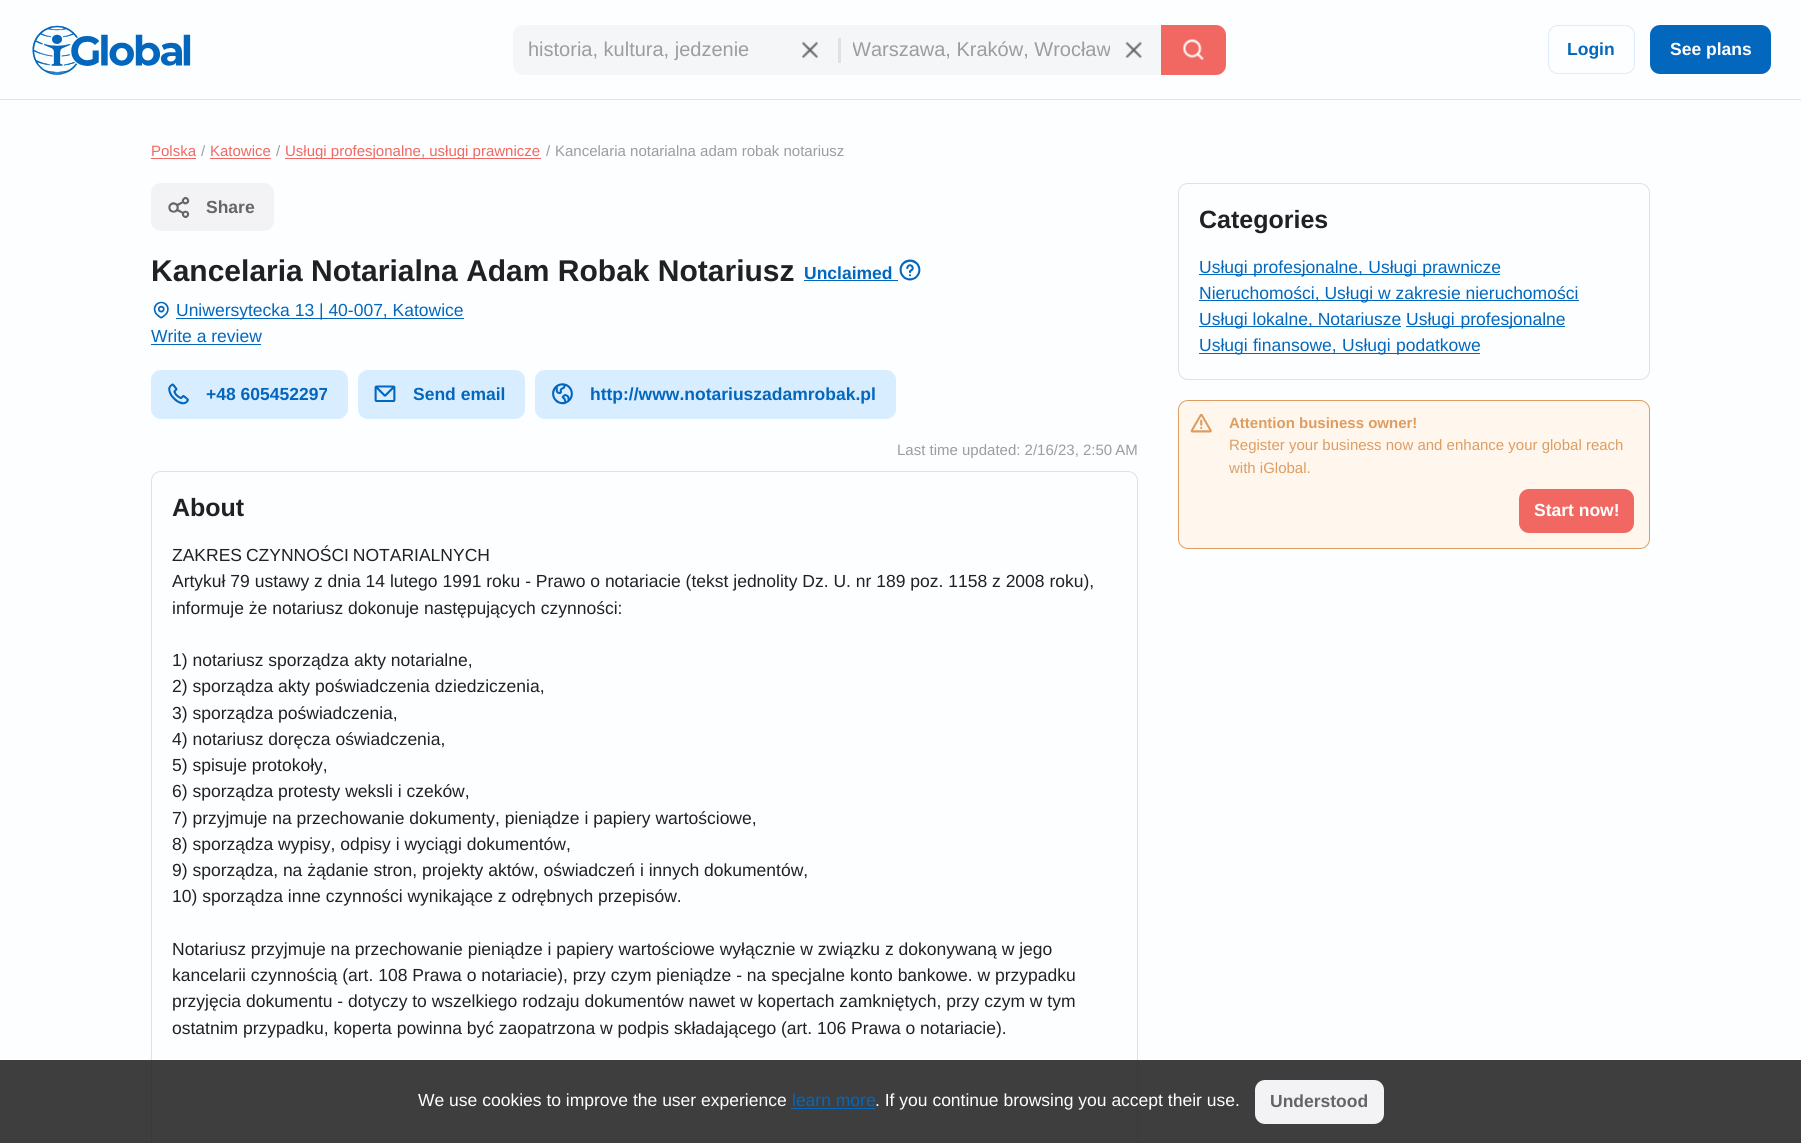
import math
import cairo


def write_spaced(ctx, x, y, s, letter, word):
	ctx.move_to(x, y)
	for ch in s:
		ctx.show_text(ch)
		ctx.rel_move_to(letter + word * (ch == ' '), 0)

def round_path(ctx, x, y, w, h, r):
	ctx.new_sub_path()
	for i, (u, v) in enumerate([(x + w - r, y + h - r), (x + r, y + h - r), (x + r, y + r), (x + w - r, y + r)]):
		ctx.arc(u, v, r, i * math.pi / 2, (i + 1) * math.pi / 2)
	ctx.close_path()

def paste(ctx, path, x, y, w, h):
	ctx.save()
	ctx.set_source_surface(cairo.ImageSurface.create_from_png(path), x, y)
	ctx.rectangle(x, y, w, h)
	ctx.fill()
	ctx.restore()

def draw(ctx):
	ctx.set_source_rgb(0.988, 0.996, 1)
	ctx.paint()
	ctx.set_source_rgb(0.882, 0.882, 0.898)
	ctx.rectangle(0, 99, 1801, 1)
	ctx.fill()
	paste(ctx, 'media/1.png', 32, 25, 159, 50)
	ctx.set_source_rgb(0.957, 0.961, 0.965)
	ctx.new_path()
	ctx.move_to(523, 25)
	ctx.line_to(838, 25)
	ctx.line_to(838, 75)
	ctx.line_to(523, 75)
	ctx.curve_to(517.5, 75, 513, 70.5, 513, 65)
	ctx.line_to(513, 35)
	ctx.curve_to(513, 29.5, 517.5, 25, 523, 25)
	ctx.close_path()
	ctx.fill()
	ctx.select_font_face('Liberation Sans')
	ctx.set_font_size(20)
	ctx.set_source_rgb(0.616, 0.612, 0.62)
	ctx.move_to(528, 56)
	ctx.show_text('historia, kultura, jedzenie')
	paste(ctx, 'media/2.png', 801, 41, 17, 17)
	ctx.set_source_rgb(0.957, 0.961, 0.965)
	ctx.rectangle(838, 25, 323, 50)
	ctx.fill()
	ctx.set_source_rgb(0.882, 0.882, 0.898)
	ctx.rectangle(838, 38, 3, 25)
	ctx.fill()
	ctx.save()
	ctx.rectangle(853, 36, 257, 27)
	ctx.clip()
	ctx.set_source_rgb(0.616, 0.612, 0.62)
	ctx.move_to(852, 56)
	ctx.show_text('Warszawa, Kraków, Wrocław')
	ctx.restore()
	paste(ctx, 'media/3.png', 1125, 41, 17, 17)
	ctx.set_source_rgb(0.945, 0.408, 0.384)
	ctx.new_path()
	ctx.move_to(1161, 25)
	ctx.line_to(1216, 25)
	ctx.curve_to(1221.5, 25, 1226, 29.5, 1226, 35)
	ctx.line_to(1226, 65)
	ctx.curve_to(1226, 70.5, 1221.5, 75, 1216, 75)
	ctx.line_to(1161, 75)
	ctx.close_path()
	ctx.fill()
	paste(ctx, 'media/4.png', 1182, 39, 22, 21)
	round_path(ctx, 1548.5, 25.5, 86, 48, 9.5)
	ctx.set_source_rgb(0.847, 0.929, 1)
	ctx.set_line_width(1)
	ctx.stroke()
	ctx.select_font_face('Liberation Sans', cairo.FONT_SLANT_NORMAL, cairo.FONT_WEIGHT_BOLD)
	ctx.set_font_size(17.5)
	ctx.set_source_rgb(0.012, 0.404, 0.741)
	ctx.move_to(1567, 55)
	ctx.show_text('Login')
	round_path(ctx, 1650, 25, 121, 49, 10)
	ctx.fill()
	ctx.set_source_rgb(1, 1, 1)
	ctx.move_to(1670, 55)
	ctx.show_text('See plans')
	ctx.select_font_face('Liberation Sans')
	ctx.set_font_size(15)
	ctx.set_source_rgb(0.945, 0.408, 0.384)
	ctx.move_to(151, 156)
	ctx.show_text('Polska')
	ctx.rectangle(151, 158, 45, 1)
	ctx.fill()
	ctx.set_source_rgb(0.616, 0.612, 0.62)
	ctx.move_to(201, 156)
	ctx.show_text('/')
	ctx.set_source_rgb(0.945, 0.408, 0.384)
	ctx.move_to(210, 156)
	ctx.show_text('Katowice')
	ctx.rectangle(210, 158, 61, 1)
	ctx.fill()
	ctx.set_source_rgb(0.616, 0.612, 0.62)
	ctx.move_to(276, 156)
	ctx.show_text('/')
	ctx.set_source_rgb(0.945, 0.408, 0.384)
	ctx.rectangle(285, 158, 256, 1)
	ctx.fill()
	ctx.move_to(285, 156)
	ctx.show_text('Usługi profesjonalne, usługi prawnicze')
	ctx.set_source_rgb(0.616, 0.612, 0.62)
	ctx.move_to(546, 156)
	ctx.show_text('/')
	ctx.move_to(555, 156)
	ctx.show_text('Kancelaria notarialna adam robak notariusz')
	ctx.set_source_rgb(0.953, 0.953, 0.961)
	round_path(ctx, 151, 183, 123, 48, 10)
	ctx.fill()
	paste(ctx, 'media/5.png', 168, 197, 22, 21)
	ctx.select_font_face('Liberation Sans', cairo.FONT_SLANT_NORMAL, cairo.FONT_WEIGHT_BOLD)
	ctx.set_font_size(17.5)
	ctx.set_source_rgb(0.396, 0.396, 0.4)
	ctx.move_to(206, 213)
	ctx.show_text('Share')
	ctx.set_font_size(30)
	ctx.set_source_rgb(0.129, 0.129, 0.129)
	ctx.move_to(151, 281)
	ctx.show_text('Kancelaria Notarialna Adam Robak Notariusz')
	ctx.set_font_size(17.5)
	ctx.set_source_rgb(0.012, 0.404, 0.741)
	ctx.move_to(804, 279)
	ctx.show_text('Unclaimed')
	ctx.rectangle(804, 280, 94, 1)
	ctx.fill()
	paste(ctx, 'media/6.png', 899, 259, 22, 22)
	paste(ctx, 'media/7.png', 153, 301, 16, 18)
	ctx.rectangle(176, 318, 288, 1)
	ctx.fill()
	ctx.select_font_face('Liberation Sans')
	ctx.move_to(176, 316)
	ctx.show_text('Uniwersytecka 13 | 40-007, Katowice')
	ctx.move_to(151, 342)
	ctx.show_text('Write a review')
	ctx.rectangle(151, 344, 110, 1)
	ctx.fill()
	ctx.set_source_rgb(0.847, 0.929, 1)
	round_path(ctx, 151, 370, 197, 49, 10)
	ctx.fill()
	paste(ctx, 'media/8.png', 168, 383, 21, 22)
	ctx.select_font_face('Liberation Sans', cairo.FONT_SLANT_NORMAL, cairo.FONT_WEIGHT_BOLD)
	ctx.set_source_rgb(0.012, 0.404, 0.741)
	ctx.move_to(206, 400)
	ctx.show_text('+48 605452297')
	ctx.set_source_rgb(0.847, 0.929, 1)
	round_path(ctx, 358, 370, 167, 49, 10)
	ctx.fill()
	paste(ctx, 'media/9.png', 374, 385, 22, 17)
	ctx.set_source_rgb(0.012, 0.404, 0.741)
	ctx.move_to(413, 400)
	ctx.show_text('Send email')
	ctx.set_source_rgb(0.847, 0.929, 1)
	round_path(ctx, 535, 370, 361, 49, 10)
	ctx.fill()
	paste(ctx, 'media/10.png', 552, 383, 21, 22)
	ctx.set_source_rgb(0.012, 0.404, 0.741)
	ctx.move_to(590, 400)
	ctx.show_text('http://www.notariuszadamrobak.pl')
	ctx.select_font_face('Liberation Sans')
	ctx.set_font_size(15)
	ctx.set_source_rgb(0.616, 0.612, 0.62)
	ctx.move_to(897, 455)
	ctx.show_text('Last time updated: 2/16/23, 2:50 AM')
	round_path(ctx, 151.5, 471.5, 986, 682, 9.5)
	ctx.set_source_rgb(0.882, 0.882, 0.898)
	ctx.stroke()
	ctx.select_font_face('Liberation Sans', cairo.FONT_SLANT_NORMAL, cairo.FONT_WEIGHT_BOLD)
	ctx.set_font_size(25)
	ctx.set_source_rgb(0.129, 0.129, 0.129)
	ctx.move_to(172, 516)
	ctx.show_text('About')
	ctx.select_font_face('Liberation Sans')
	ctx.set_font_size(17.5)
	write_spaced(ctx, 172, 561, 'ZAKRES CZYNNOŚCI NOTARIALNYCH', 0, -1)
	for x, y, s in [
		(172, 587, 'Artykuł 79 ustawy z dnia 14 lutego 1991 roku - Prawo o notariacie (tekst jednolity Dz. U. nr 189 poz. 1158 z 2008 roku),'),
		(172, 614, 'informuje że notariusz dokonuje następujących czynności:'),
		(172, 666, '1) notariusz sporządza akty notarialne,'),
		(172, 692, '2) sporządza akty poświadczenia dziedziczenia,'),
		(172, 719, '3) sporządza poświadczenia,'),
		(172, 745, '4) notariusz doręcza oświadczenia,'),
		(172, 771, '5) spisuje protokoły,'),
		(172, 797, '6) sporządza protesty weksli i czeków,'),
		(172, 824, '7) przyjmuje na przechowanie dokumenty, pieniądze i papiery wartościowe,'),
		(172, 850, '8) sporządza wypisy, odpisy i wyciągi dokumentów,'),
		(172, 876, '9) sporządza, na żądanie stron, projekty aktów, oświadczeń i innych dokumentów,'),
		(172, 902, '10) sporządza inne czynności wynikające z odrębnych przepisów.'),
		(172, 955, 'Notariusz przyjmuje na przechowanie pieniądze i papiery wartościowe wyłącznie w związku z dokonywaną w jego'),
		(172, 981, 'kancelarii czynnością (art. 108 Prawa o notariacie), przy czym pieniądze - na specjalne konto bankowe. w przypadku'),
		(172, 1007, 'przyjęcia dokumentu - dotyczy to wszelkiego rodzaju dokumentów nawet w kopertach zamkniętych, przy czym w tym'),
		(172, 1034, 'ostatnim przypadku, koperta powinna być zaopatrzona w podpis składającego (art. 106 Prawa o notariacie).'),
	]:
		ctx.move_to(x, y)
		ctx.show_text(s)
	round_path(ctx, 1178.5, 183.5, 471, 196, 9.5)
	ctx.set_source_rgb(0.882, 0.882, 0.898)
	ctx.stroke()
	ctx.select_font_face('Liberation Sans', cairo.FONT_SLANT_NORMAL, cairo.FONT_WEIGHT_BOLD)
	ctx.set_font_size(25)
	ctx.set_source_rgb(0.129, 0.129, 0.129)
	ctx.move_to(1199, 228)
	ctx.show_text('Categories')
	ctx.set_source_rgb(0.012, 0.404, 0.741)
	ctx.rectangle(1199, 274, 301, 1)
	ctx.fill()
	ctx.select_font_face('Liberation Sans')
	ctx.set_font_size(17.5)
	write_spaced(ctx, 1199, 273, 'Usługi profesjonalne, Usługi prawnicze', 0, 0.5)
	ctx.rectangle(1199, 300, 380, 1)
	ctx.fill()
	ctx.move_to(1199, 299)
	ctx.show_text('Nieruchomości, Usługi w zakresie nieruchomości')
	ctx.rectangle(1199, 326, 202, 1)
	ctx.fill()
	ctx.move_to(1199, 325)
	ctx.show_text('Usługi lokalne, Notariusze')
	ctx.rectangle(1406, 326, 159, 1)
	ctx.fill()
	write_spaced(ctx, 1406, 325, 'Usługi profesjonalne', 0, 1)
	ctx.rectangle(1199, 353, 281, 1)
	ctx.fill()
	write_spaced(ctx, 1199, 351, 'Usługi finansowe, Usługi podatkowe', 0, 0.5)
	ctx.set_source_rgb(1, 0.965, 0.929)
	round_path(ctx, 1178.5, 400.5, 471, 148, 9.5)
	ctx.fill_preserve()
	ctx.set_source_rgb(0.867, 0.616, 0.384)
	ctx.stroke()
	paste(ctx, 'media/11.png', 1190, 413, 22, 20)
	ctx.select_font_face('Liberation Sans', cairo.FONT_SLANT_NORMAL, cairo.FONT_WEIGHT_BOLD)
	ctx.set_font_size(15)
	ctx.move_to(1229, 428)
	ctx.show_text('Attention business owner!')
	ctx.select_font_face('Liberation Sans')
	ctx.move_to(1229, 450)
	ctx.show_text('Register your business now and enhance your global reach')
	ctx.move_to(1229, 473)
	ctx.show_text('with iGlobal.')
	ctx.set_source_rgb(0.945, 0.408, 0.384)
	round_path(ctx, 1519, 489, 115, 44, 10)
	ctx.fill()
	ctx.select_font_face('Liberation Sans', cairo.FONT_SLANT_NORMAL, cairo.FONT_WEIGHT_BOLD)
	ctx.set_font_size(17.5)
	ctx.set_source_rgb(1, 1, 1)
	ctx.move_to(1534, 516)
	ctx.show_text('Start now!')
	ctx.set_source_rgba(0.133, 0.133, 0.133, 0.87)
	ctx.rectangle(0, 1060, 1801, 83)
	ctx.fill()
	ctx.select_font_face('Liberation Sans')
	ctx.set_source_rgb(1, 1, 1)
	ctx.move_to(418, 1106)
	ctx.show_text('We use cookies to improve the user experience')
	ctx.set_source_rgb(0.012, 0.404, 0.741)
	ctx.move_to(792, 1106)
	ctx.show_text('learn more')
	ctx.rectangle(791, 1108, 84, 1)
	ctx.fill()
	ctx.set_source_rgb(1, 1, 1)
	ctx.move_to(875, 1106)
	ctx.show_text('. If you continue browsing you accept their use.')
	ctx.set_source_rgb(0.953, 0.953, 0.961)
	round_path(ctx, 1255, 1080, 129, 44, 10)
	ctx.fill()
	ctx.select_font_face('Liberation Sans', cairo.FONT_SLANT_NORMAL, cairo.FONT_WEIGHT_BOLD)
	ctx.set_source_rgb(0.396, 0.396, 0.4)
	ctx.move_to(1270, 1107)
	ctx.show_text('Understood')


surface = cairo.ImageSurface(cairo.FORMAT_RGB24, 1801, 1143)
ctx = cairo.Context(surface)
options = cairo.FontOptions()
options.set_hint_metrics(cairo.HINT_METRICS_OFF)
options.set_hint_style(cairo.HINT_STYLE_NONE)
ctx.set_font_options(options)
ctx.set_miter_limit(4)
draw(ctx)
surface.write_to_png('image.png')
